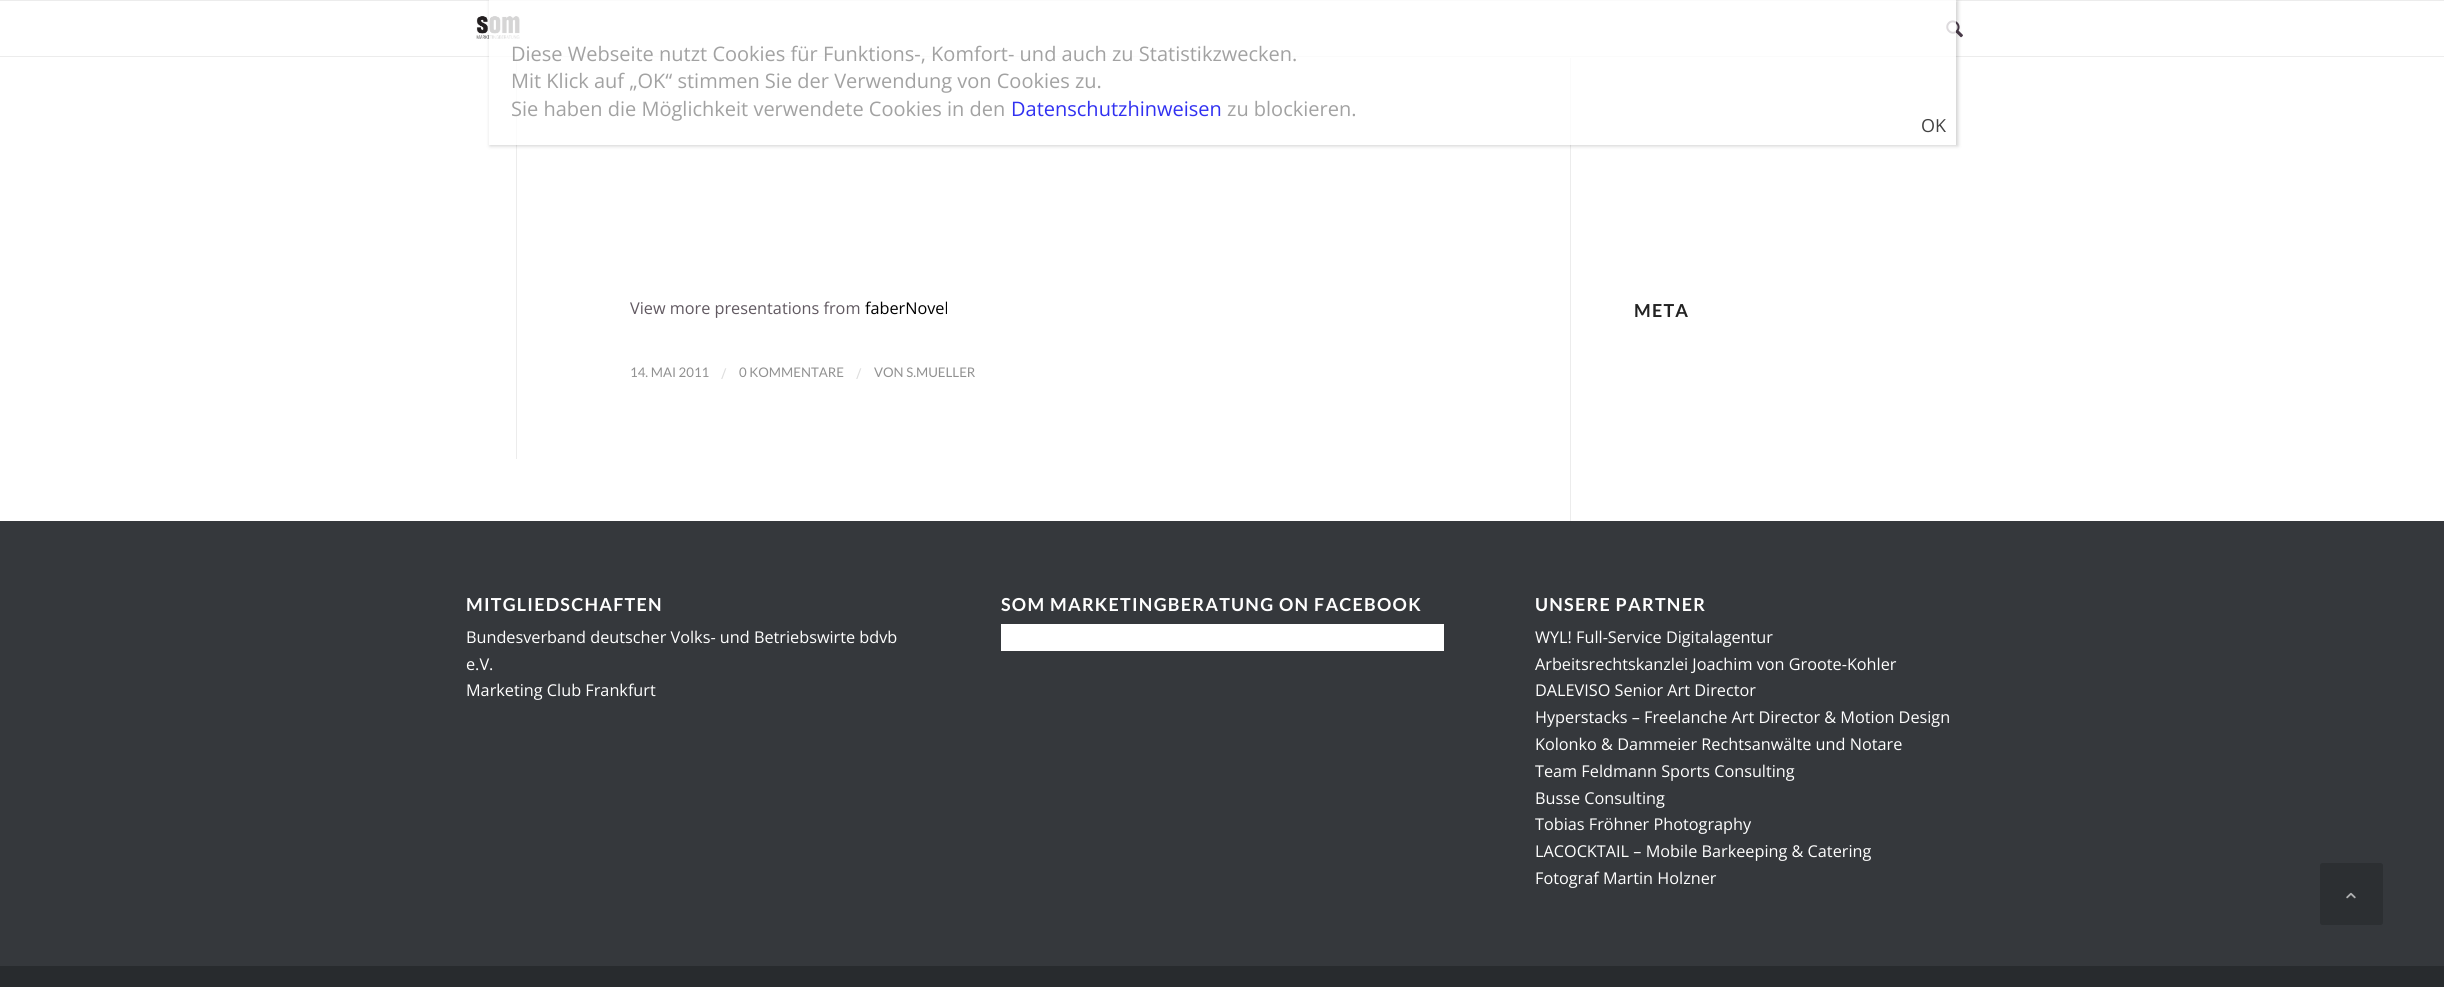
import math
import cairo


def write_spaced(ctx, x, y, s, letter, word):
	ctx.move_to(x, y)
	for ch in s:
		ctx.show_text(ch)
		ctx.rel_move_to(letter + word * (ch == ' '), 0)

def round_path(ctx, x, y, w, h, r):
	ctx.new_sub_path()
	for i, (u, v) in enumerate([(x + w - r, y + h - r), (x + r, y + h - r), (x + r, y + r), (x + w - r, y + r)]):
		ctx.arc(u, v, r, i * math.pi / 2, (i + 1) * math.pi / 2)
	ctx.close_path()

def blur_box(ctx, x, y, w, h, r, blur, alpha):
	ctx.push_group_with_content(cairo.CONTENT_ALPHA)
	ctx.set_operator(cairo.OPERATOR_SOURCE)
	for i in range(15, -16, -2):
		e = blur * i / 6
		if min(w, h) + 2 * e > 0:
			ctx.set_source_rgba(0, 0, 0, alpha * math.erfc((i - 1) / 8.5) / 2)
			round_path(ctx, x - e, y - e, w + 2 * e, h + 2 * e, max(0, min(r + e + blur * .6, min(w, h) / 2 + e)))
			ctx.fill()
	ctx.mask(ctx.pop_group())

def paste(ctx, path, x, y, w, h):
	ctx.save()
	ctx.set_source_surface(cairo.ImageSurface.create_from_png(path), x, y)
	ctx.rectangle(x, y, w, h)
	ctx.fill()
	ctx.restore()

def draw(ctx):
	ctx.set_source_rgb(1, 1, 1)
	ctx.paint()
	ctx.set_source_rgb(0.922, 0.922, 0.922)
	ctx.rectangle(0, 0, 2444, 1)
	ctx.fill()
	ctx.rectangle(0, 56, 2444, 1)
	ctx.fill()
	paste(ctx, 'media/1.png', 476, 16, 44, 23)
	paste(ctx, 'media/2.png', 1946, 20, 17, 18)
	ctx.rectangle(1570, 58, 1, 463)
	ctx.fill()
	ctx.rectangle(516, 58, 1, 401)
	ctx.fill()
	ctx.save()
	ctx.set_fill_rule(cairo.FILL_RULE_EVEN_ODD)
	ctx.new_path()
	ctx.move_to(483, 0)
	ctx.line_to(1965, 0)
	ctx.line_to(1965, 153)
	ctx.line_to(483, 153)
	ctx.close_path()
	ctx.move_to(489, 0)
	ctx.line_to(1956, 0)
	ctx.line_to(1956, 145)
	ctx.line_to(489, 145)
	ctx.close_path()
	ctx.clip()
	ctx.set_source_rgb(0.008, 0.008, 0.008)
	blur_box(ctx, 490, 1, 1468, 145, 0, 2, 0.19)
	ctx.restore()
	ctx.set_source_rgba(1, 1, 1, 0.81)
	ctx.rectangle(489, 0, 1467, 145)
	ctx.fill()
	ctx.select_font_face('Open Sans')
	ctx.set_font_size(20)
	ctx.set_source_rgb(0.635, 0.635, 0.635)
	for x, y, s in [
		(511, 61, 'Diese Webseite nutzt Cookies für Funktions-, Komfort- und auch zu Statistikzwecken.'),
		(511, 88, 'Mit Klick auf „OK“ stimmen Sie der Verwendung von Cookies zu.'),
		(511, 116, 'Sie haben die Möglichkeit verwendete Cookies in den'),
	]:
		ctx.move_to(x, y)
		ctx.show_text(s)
	ctx.set_source_rgb(0.192, 0.192, 0.945)
	ctx.move_to(1011, 116)
	ctx.show_text('Datenschutzhinweisen')
	ctx.set_source_rgb(0.635, 0.635, 0.635)
	ctx.move_to(1227, 116)
	ctx.show_text('zu blockieren.')
	ctx.set_font_size(18)
	ctx.set_source_rgb(0.263, 0.263, 0.263)
	ctx.move_to(1921, 132)
	ctx.show_text('OK')
	ctx.set_font_size(16.25)
	ctx.set_source_rgb(0.38, 0.349, 0.38)
	ctx.move_to(630, 314)
	ctx.show_text('View more presentations from')
	ctx.set_source_rgb(0, 0, 0)
	ctx.move_to(865, 314)
	ctx.show_text('faberNovel')
	ctx.select_font_face('Lato')
	ctx.set_font_size(13.25)
	ctx.set_source_rgb(0.569, 0.569, 0.569)
	ctx.move_to(630, 377)
	ctx.show_text('14. MAI 2011')
	ctx.select_font_face('Open Sans')
	ctx.set_font_size(15)
	ctx.set_source_rgb(0.871, 0.871, 0.871)
	ctx.move_to(721, 379)
	ctx.show_text('/')
	ctx.select_font_face('Lato')
	ctx.set_font_size(13.25)
	ctx.set_source_rgb(0.569, 0.569, 0.569)
	ctx.move_to(739, 377)
	ctx.show_text('0 KOMMENTARE')
	ctx.select_font_face('Open Sans')
	ctx.set_font_size(15)
	ctx.set_source_rgb(0.871, 0.871, 0.871)
	ctx.move_to(856, 379)
	ctx.show_text('/')
	ctx.select_font_face('Lato')
	ctx.set_font_size(13.25)
	ctx.set_source_rgb(0.569, 0.569, 0.569)
	ctx.move_to(874, 377)
	ctx.show_text('VON S.MUELLER')
	ctx.select_font_face('Lato', cairo.FONT_SLANT_NORMAL, cairo.FONT_WEIGHT_BOLD)
	ctx.set_font_size(17.9)
	ctx.set_source_rgb(0.133, 0.133, 0.133)
	write_spaced(ctx, 1634, 317, 'META', 1.25, 0)
	ctx.set_source_rgb(0.208, 0.22, 0.235)
	ctx.rectangle(0, 521, 2444, 445)
	ctx.fill()
	ctx.set_source_rgb(1, 1, 1)
	write_spaced(ctx, 466, 611, 'MITGLIEDSCHAFTEN', 1.25, 0)
	ctx.select_font_face('Open Sans')
	ctx.set_font_size(16.25)
	for x, y, s in [
		(466, 643, 'Bundesverband deutscher Volks- und Betriebswirte bdvb'),
		(466, 670, 'e.V.'),
		(466, 696, 'Marketing Club Frankfurt'),
	]:
		ctx.move_to(x, y)
		ctx.show_text(s)
	ctx.select_font_face('Lato', cairo.FONT_SLANT_NORMAL, cairo.FONT_WEIGHT_BOLD)
	ctx.set_font_size(17.9)
	write_spaced(ctx, 1001, 611, 'SOM MARKETINGBERATUNG ON FACEBOOK', 1.25, 0)
	ctx.rectangle(1001, 624, 443, 27)
	ctx.fill()
	write_spaced(ctx, 1535, 611, 'UNSERE PARTNER', 1.25, 0)
	ctx.select_font_face('Open Sans')
	ctx.set_font_size(16.25)
	for x, y, s in [
		(1535, 643, 'WYL! Full-Service Digitalagentur'),
		(1535, 670, 'Arbeitsrechtskanzlei Joachim von Groote-Kohler'),
		(1535, 696, 'DALEVISO Senior Art Director'),
		(1535, 723, 'Hyperstacks – Freelanche Art Director & Motion Design'),
		(1535, 750, 'Kolonko & Dammeier Rechtsanwälte und Notare'),
		(1535, 777, 'Team Feldmann Sports Consulting'),
		(1535, 804, 'Busse Consulting'),
		(1535, 830, 'Tobias Fröhner Photography'),
		(1535, 857, 'LACOCKTAIL – Mobile Barkeeping & Catering'),
		(1535, 884, 'Fotograf Martin Holzner'),
	]:
		ctx.move_to(x, y)
		ctx.show_text(s)
	ctx.set_source_rgb(0.157, 0.169, 0.18)
	ctx.rectangle(0, 966, 2444, 21)
	ctx.fill()
	ctx.set_source_rgb(0.173, 0.184, 0.196)
	round_path(ctx, 2320, 863, 63, 62, 2.5)
	ctx.fill()
	paste(ctx, 'media/3.png', 2346, 892, 10, 7)


surface = cairo.ImageSurface(cairo.FORMAT_RGB24, 2444, 987)
ctx = cairo.Context(surface)
options = cairo.FontOptions()
options.set_hint_metrics(cairo.HINT_METRICS_OFF)
options.set_hint_style(cairo.HINT_STYLE_NONE)
ctx.set_font_options(options)
ctx.set_miter_limit(4)
draw(ctx)
surface.write_to_png('image.png')
